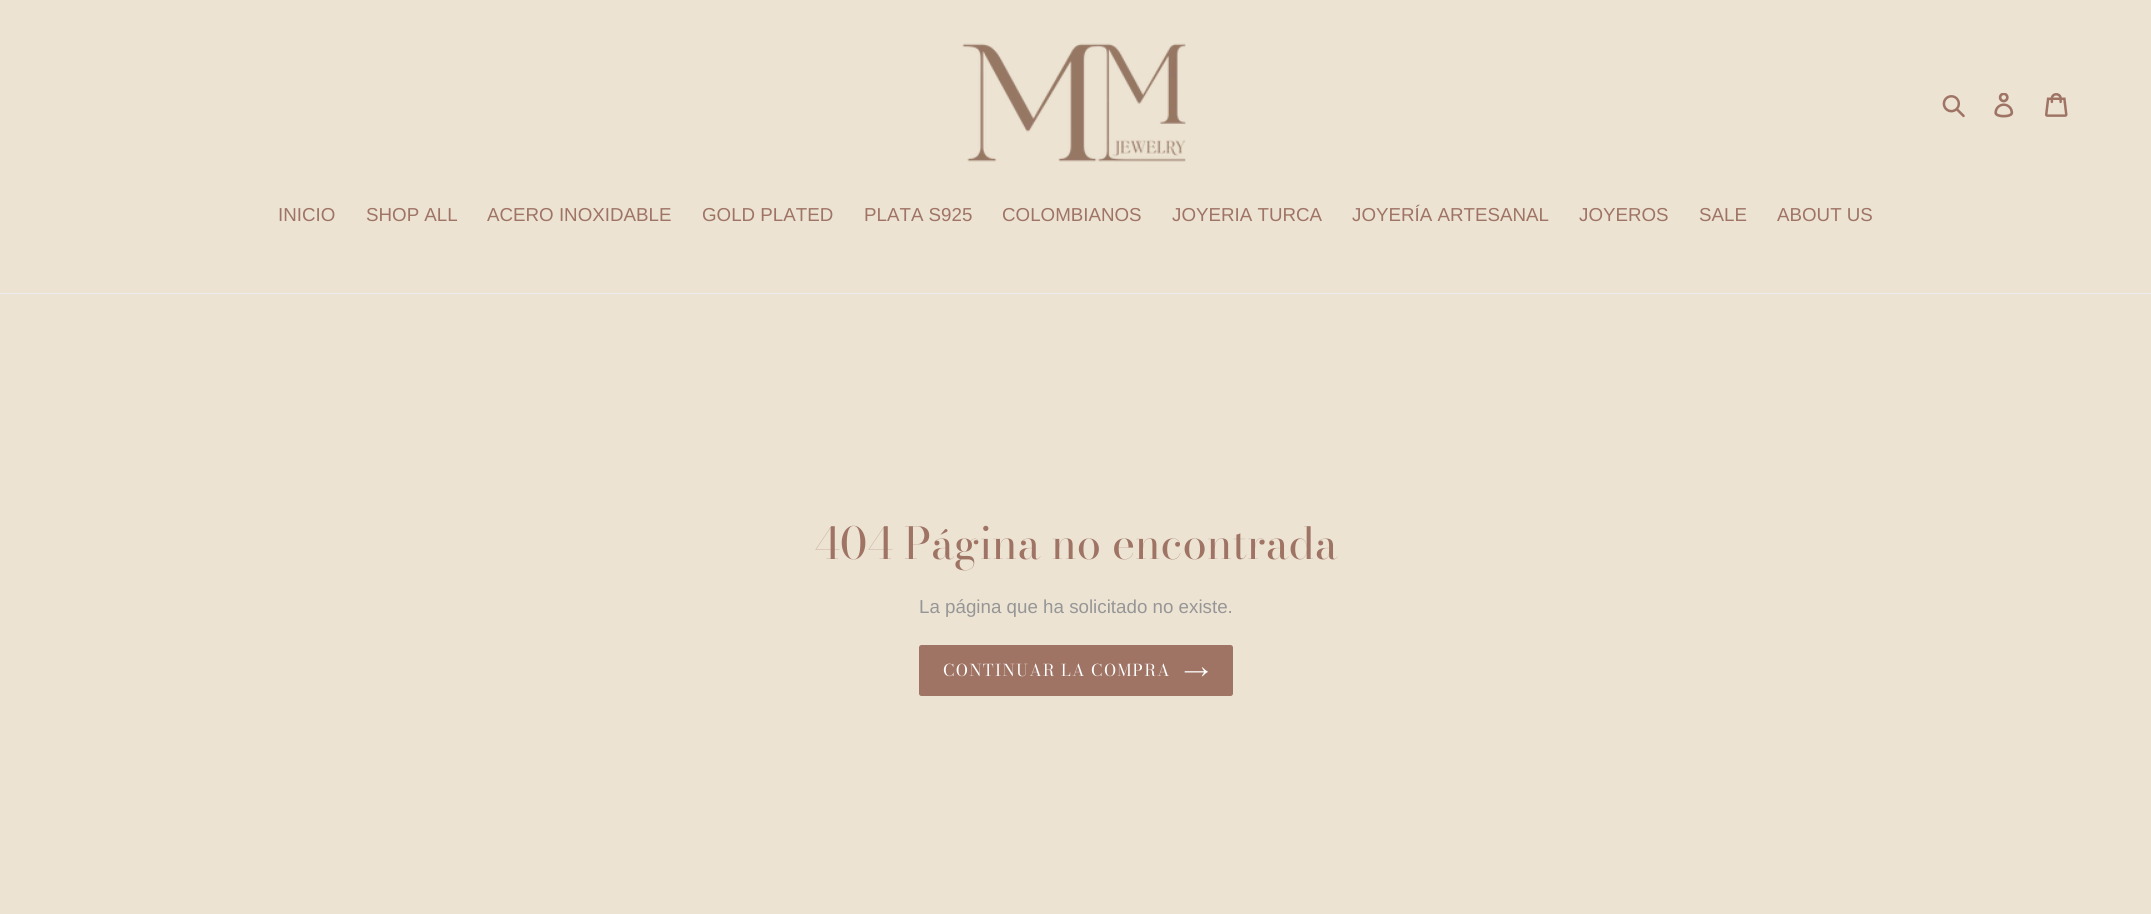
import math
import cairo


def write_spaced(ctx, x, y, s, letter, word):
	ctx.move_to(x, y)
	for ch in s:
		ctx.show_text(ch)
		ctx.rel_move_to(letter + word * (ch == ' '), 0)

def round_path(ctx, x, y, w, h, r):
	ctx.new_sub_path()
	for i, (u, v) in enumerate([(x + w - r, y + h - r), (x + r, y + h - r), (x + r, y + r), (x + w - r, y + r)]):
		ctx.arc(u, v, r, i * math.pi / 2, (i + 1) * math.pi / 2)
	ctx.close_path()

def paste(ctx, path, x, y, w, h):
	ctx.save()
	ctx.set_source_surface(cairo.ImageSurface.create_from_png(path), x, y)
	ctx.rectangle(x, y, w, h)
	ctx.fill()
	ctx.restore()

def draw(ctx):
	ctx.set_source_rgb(0.925, 0.89, 0.827)
	ctx.paint()
	paste(ctx, 'media/1.png', 962, 43, 224, 119)
	paste(ctx, 'media/2.png', 1942, 95, 23, 23)
	paste(ctx, 'media/3.png', 1994, 93, 20, 25)
	paste(ctx, 'media/4.png', 2045, 93, 23, 24)
	ctx.set_source_rgb(0.922, 0.922, 0.922)
	ctx.rectangle(0, 293, 2151, 1)
	ctx.fill()
	ctx.select_font_face('Liberation Sans')
	ctx.set_font_size(18.75)
	ctx.set_source_rgb(0.624, 0.455, 0.396)
	for x, y, s in [
		(278, 221, 'INICIO'),
		(366, 221, 'SHOP ALL'),
		(487, 221, 'ACERO INOXIDABLE'),
		(702, 221, 'GOLD PLATED'),
		(864, 221, 'PLATA S925'),
		(1002, 221, 'COLOMBIANOS'),
		(1172, 221, 'JOYERIA TURCA'),
		(1352, 221, 'JOYERÍA ARTESANAL'),
		(1579, 221, 'JOYEROS'),
		(1699, 221, 'SALE'),
		(1777, 221, 'ABOUT US'),
	]:
		ctx.move_to(x, y)
		ctx.show_text(s)
	ctx.select_font_face('Bodoni Moda')
	ctx.set_font_size(43.75)
	ctx.move_to(814, 559)
	ctx.show_text('404 Página no encontrada')
	ctx.select_font_face('Liberation Sans')
	ctx.set_font_size(18.75)
	ctx.set_source_rgb(0.588, 0.588, 0.588)
	ctx.move_to(919, 613)
	ctx.show_text('La página que ha solicitado no existe.')
	ctx.set_source_rgb(0.624, 0.455, 0.396)
	round_path(ctx, 919, 645, 314, 51, 2.5)
	ctx.fill()
	ctx.select_font_face('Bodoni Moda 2')
	ctx.set_font_size(16.25)
	ctx.set_source_rgb(1, 1, 1)
	write_spaced(ctx, 943, 676, 'CONTINUAR LA COMPRA', 1.25, 0)
	paste(ctx, 'media/5.png', 1184, 667, 24, 10)


surface = cairo.ImageSurface(cairo.FORMAT_RGB24, 2151, 914)
ctx = cairo.Context(surface)
options = cairo.FontOptions()
options.set_hint_metrics(cairo.HINT_METRICS_OFF)
options.set_hint_style(cairo.HINT_STYLE_NONE)
ctx.set_font_options(options)
ctx.set_miter_limit(4)
draw(ctx)
surface.write_to_png('image.png')
